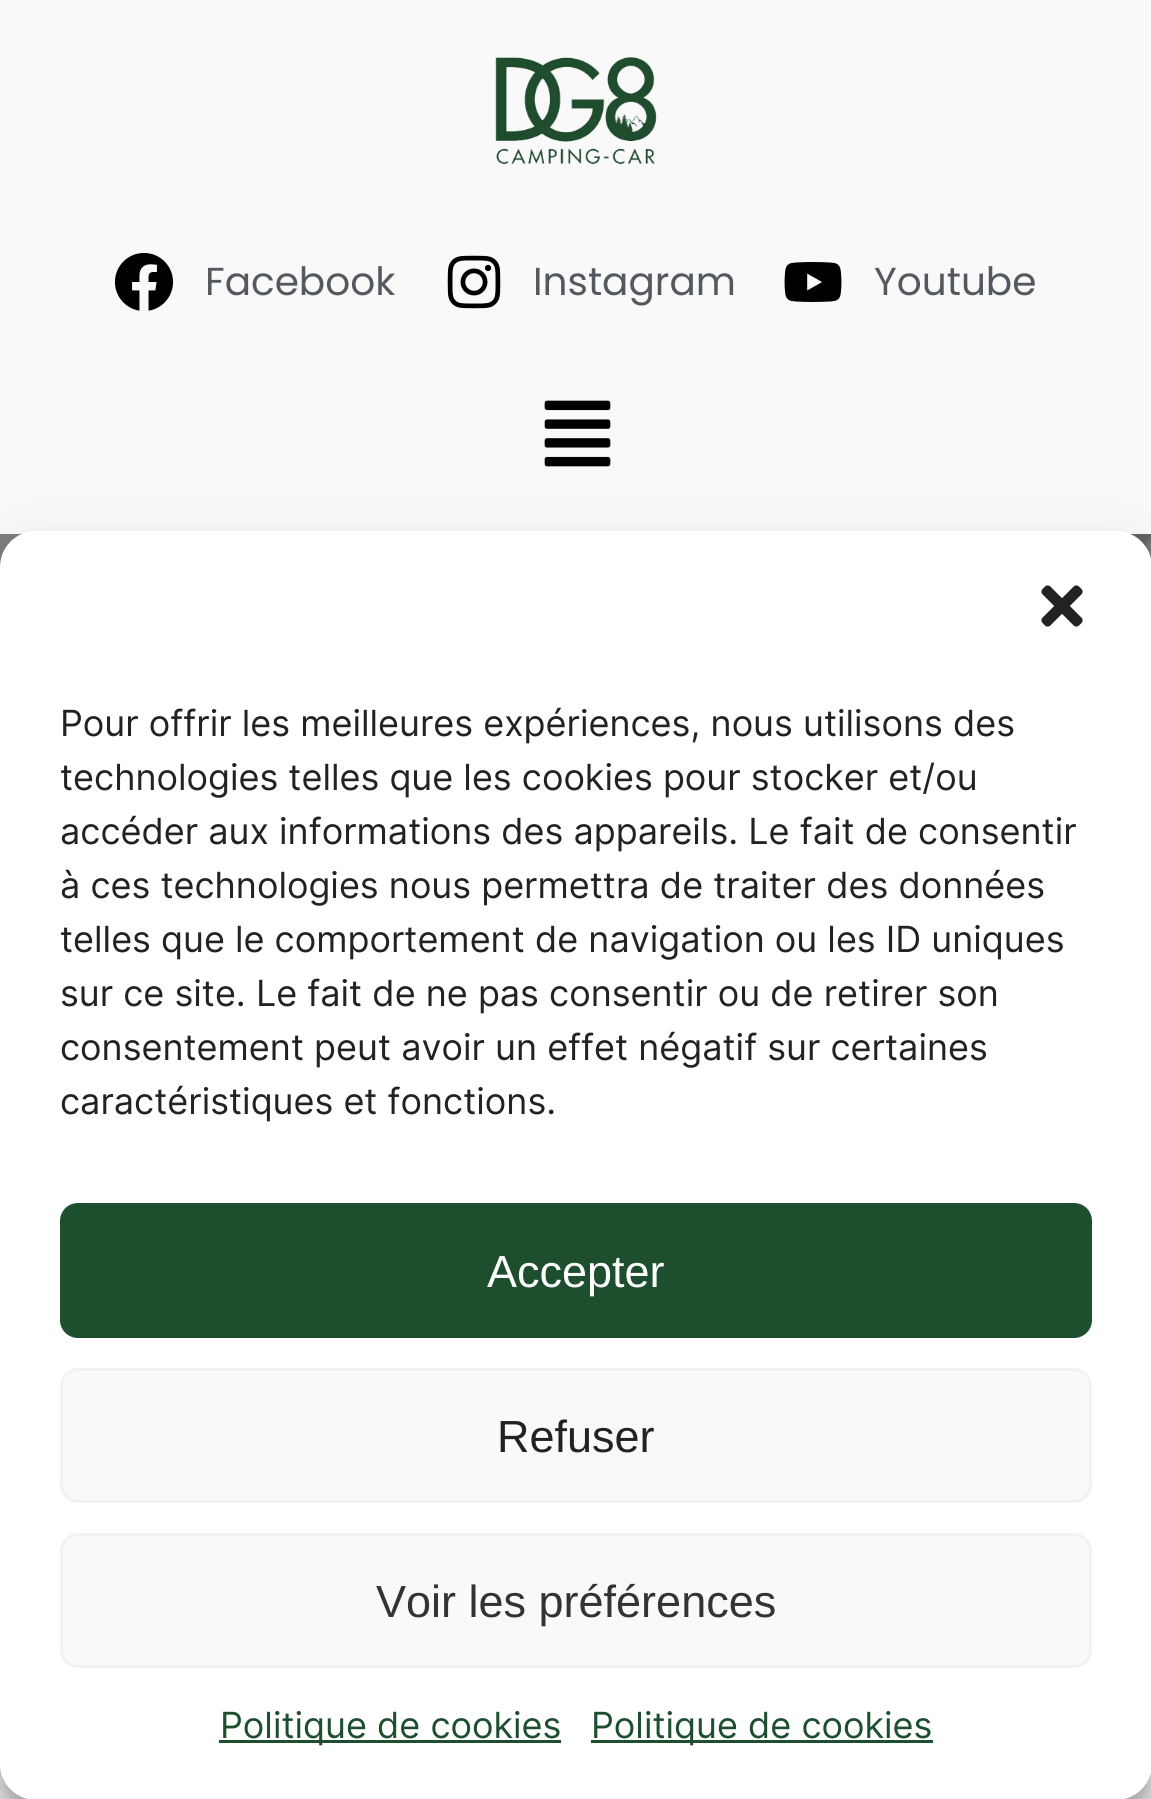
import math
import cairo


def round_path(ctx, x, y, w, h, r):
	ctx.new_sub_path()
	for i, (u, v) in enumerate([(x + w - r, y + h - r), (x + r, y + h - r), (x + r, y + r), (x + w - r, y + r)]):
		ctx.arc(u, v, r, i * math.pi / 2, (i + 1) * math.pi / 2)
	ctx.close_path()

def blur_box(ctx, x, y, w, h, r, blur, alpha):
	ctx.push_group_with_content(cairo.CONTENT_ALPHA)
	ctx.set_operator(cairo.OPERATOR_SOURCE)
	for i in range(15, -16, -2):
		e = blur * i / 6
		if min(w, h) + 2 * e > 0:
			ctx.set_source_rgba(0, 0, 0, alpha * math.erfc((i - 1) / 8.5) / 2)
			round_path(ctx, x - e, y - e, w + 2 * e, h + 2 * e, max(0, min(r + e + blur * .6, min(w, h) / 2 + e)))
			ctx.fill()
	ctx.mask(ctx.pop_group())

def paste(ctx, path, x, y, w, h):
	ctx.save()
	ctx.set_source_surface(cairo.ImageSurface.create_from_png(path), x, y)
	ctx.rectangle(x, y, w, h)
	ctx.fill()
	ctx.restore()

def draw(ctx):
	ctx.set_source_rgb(0.976, 0.976, 0.976)
	ctx.paint()
	paste(ctx, 'media/1.png', 495, 56, 162, 108)
	paste(ctx, 'media/2.png', 114, 252, 60, 59)
	ctx.select_font_face('Poppins')
	ctx.set_font_size(39)
	ctx.set_source_rgb(0.329, 0.349, 0.373)
	ctx.move_to(205, 295)
	ctx.show_text('Facebook')
	paste(ctx, 'media/3.png', 447, 255, 54, 54)
	ctx.move_to(533, 295)
	ctx.show_text('Instagram')
	paste(ctx, 'media/4.png', 784, 262, 58, 40)
	ctx.move_to(874, 295)
	ctx.show_text('Youtube')
	paste(ctx, 'media/5.png', 544, 400, 67, 67)
	paste(ctx, 'media/6.png', 0, 534, 1151, 33)
	ctx.set_source_rgb(0, 0, 0)
	blur_box(ctx, 0, 549, 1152, 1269, 36, 9, 0.23)
	blur_box(ctx, 0, 561, 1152, 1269, 36, 30, 0.19)
	ctx.set_source_rgb(1, 1, 1)
	round_path(ctx, 0, 531, 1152, 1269, 36)
	ctx.fill()
	paste(ctx, 'media/7.png', 1041, 585, 42, 42)
	ctx.select_font_face('Inter')
	ctx.set_font_size(36)
	ctx.set_source_rgb(0.133, 0.133, 0.133)
	for x, y, s in [
		(60, 736, 'Pour offrir les meilleures expériences, nous utilisons des'),
		(60, 790, 'technologies telles que les cookies pour stocker et/ou'),
		(60, 844, 'accéder aux informations des appareils. Le fait de consentir'),
		(60, 898, 'à ces technologies nous permettra de traiter des données'),
		(60, 952, 'telles que le comportement de navigation ou les ID uniques'),
		(60, 1006, 'sur ce site. Le fait de ne pas consentir ou de retirer son'),
		(60, 1060, 'consentement peut avoir un effet négatif sur certaines'),
		(60, 1114, 'caractéristiques et fonctions.'),
	]:
		ctx.move_to(x, y)
		ctx.show_text(s)
	ctx.set_source_rgb(0.114, 0.306, 0.176)
	round_path(ctx, 61.5, 1204.5, 1029, 132, 16.5)
	ctx.fill_preserve()
	ctx.set_line_width(3)
	ctx.stroke()
	ctx.select_font_face('Liberation Sans')
	ctx.set_font_size(45)
	ctx.set_source_rgb(1, 1, 1)
	ctx.move_to(487, 1287)
	ctx.show_text('Accepter')
	ctx.set_source_rgb(0.976, 0.976, 0.976)
	round_path(ctx, 61.5, 1369.5, 1029, 132, 16.5)
	ctx.fill_preserve()
	ctx.set_source_rgb(0.949, 0.949, 0.949)
	ctx.stroke()
	ctx.set_source_rgb(0.133, 0.133, 0.133)
	ctx.move_to(497, 1452)
	ctx.show_text('Refuser')
	ctx.set_source_rgb(0.976, 0.976, 0.976)
	round_path(ctx, 61.5, 1534.5, 1029, 132, 16.5)
	ctx.fill_preserve()
	ctx.set_source_rgb(0.949, 0.949, 0.949)
	ctx.stroke()
	ctx.set_source_rgb(0.2, 0.2, 0.2)
	ctx.move_to(376, 1617)
	ctx.show_text('Voir les préférences')
	ctx.set_source_rgb(0.114, 0.306, 0.176)
	ctx.rectangle(219, 1740, 342, 3)
	ctx.fill()
	ctx.select_font_face('Inter')
	ctx.set_font_size(36)
	ctx.move_to(220, 1738)
	ctx.show_text('Politique de cookies')
	ctx.rectangle(591, 1740, 342, 3)
	ctx.fill()
	ctx.move_to(591, 1738)
	ctx.show_text('Politique de cookies')


surface = cairo.ImageSurface(cairo.FORMAT_RGB24, 1151, 1799)
ctx = cairo.Context(surface)
options = cairo.FontOptions()
options.set_hint_metrics(cairo.HINT_METRICS_OFF)
options.set_hint_style(cairo.HINT_STYLE_NONE)
ctx.set_font_options(options)
ctx.set_miter_limit(4)
draw(ctx)
surface.write_to_png('image.png')
